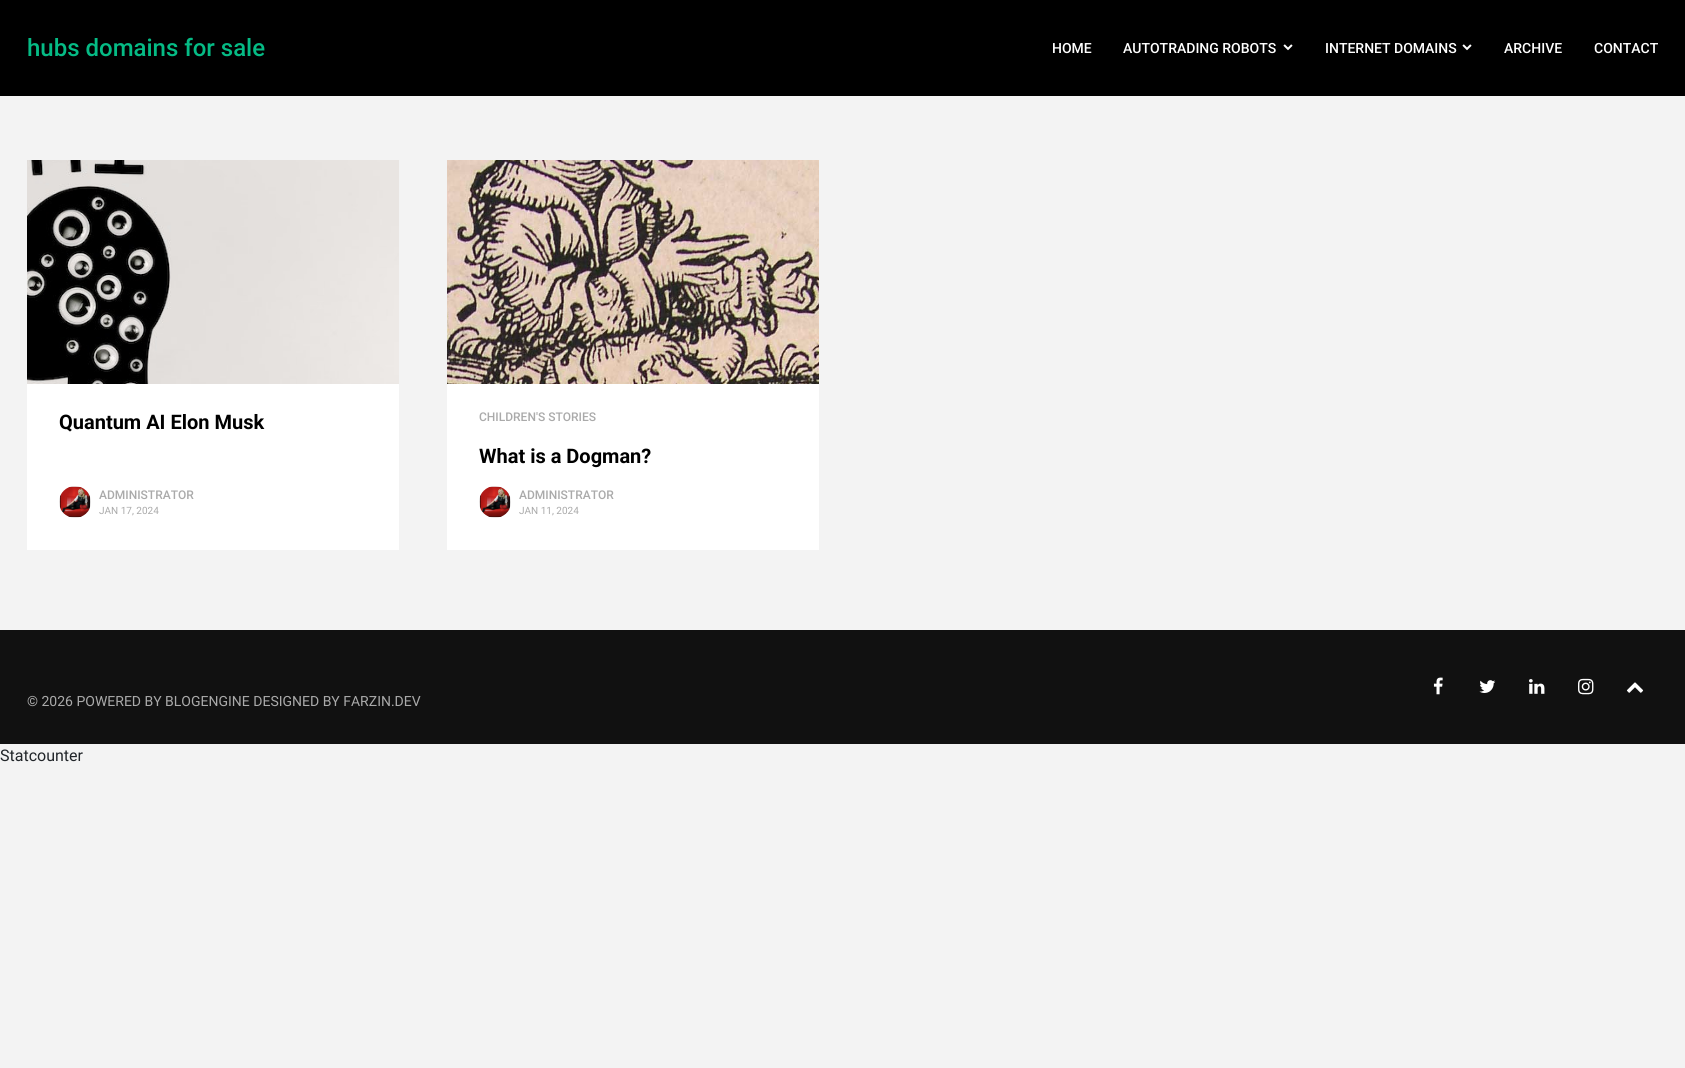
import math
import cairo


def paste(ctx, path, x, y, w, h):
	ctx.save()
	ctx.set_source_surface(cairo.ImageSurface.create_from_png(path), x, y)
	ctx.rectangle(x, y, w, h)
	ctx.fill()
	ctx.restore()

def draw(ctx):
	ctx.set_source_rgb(0.953, 0.953, 0.953)
	ctx.paint()
	ctx.set_source_rgb(0, 0, 0)
	ctx.rectangle(0, 0, 1685, 96)
	ctx.fill()
	ctx.select_font_face('Roboto Medium')
	ctx.set_font_size(24)
	ctx.set_source_rgb(0.02, 0.733, 0.522)
	ctx.move_to(27, 56)
	ctx.show_text('hubs domains for sale')
	ctx.set_font_size(14)
	ctx.set_source_rgb(1, 1, 1)
	ctx.move_to(1052, 53)
	ctx.show_text('HOME')
	ctx.move_to(1123, 53)
	ctx.show_text('AUTOTRADING ROBOTS')
	paste(ctx, 'media/1.png', 1283, 44, 10, 7)
	ctx.move_to(1325, 53)
	ctx.show_text('INTERNET DOMAINS')
	paste(ctx, 'media/1.png', 1462, 44, 10, 7)
	ctx.move_to(1504, 53)
	ctx.show_text('ARCHIVE')
	ctx.move_to(1594, 53)
	ctx.show_text('CONTACT')
	ctx.rectangle(27, 384, 372, 166)
	ctx.fill()
	paste(ctx, 'media/2.png', 27, 160, 372, 224)
	ctx.select_font_face('Roboto', cairo.FONT_SLANT_NORMAL, cairo.FONT_WEIGHT_BOLD)
	ctx.set_font_size(20)
	ctx.set_source_rgb(0, 0, 0)
	ctx.move_to(59, 429)
	ctx.show_text('Quantum AI Elon Musk')
	paste(ctx, 'media/3.png', 59, 486, 32, 32)
	ctx.select_font_face('Roboto Medium')
	ctx.set_font_size(12)
	ctx.set_source_rgb(0.667, 0.667, 0.667)
	ctx.move_to(99, 499)
	ctx.show_text('ADMINISTRATOR')
	ctx.select_font_face('Roboto')
	ctx.set_font_size(10)
	ctx.move_to(99, 514)
	ctx.show_text('JAN 17, 2024')
	ctx.set_source_rgb(1, 1, 1)
	ctx.rectangle(447, 384, 372, 166)
	ctx.fill()
	paste(ctx, 'media/4.png', 447, 160, 372, 224)
	ctx.select_font_face('Roboto Medium')
	ctx.set_font_size(12)
	ctx.set_source_rgb(0.667, 0.667, 0.667)
	ctx.move_to(479, 421)
	ctx.show_text('CHILDREN\'S STORIES')
	ctx.select_font_face('Roboto', cairo.FONT_SLANT_NORMAL, cairo.FONT_WEIGHT_BOLD)
	ctx.set_font_size(20)
	ctx.set_source_rgb(0, 0, 0)
	ctx.move_to(479, 463)
	ctx.show_text('What is a Dogman?')
	paste(ctx, 'media/5.png', 479, 486, 32, 32)
	ctx.select_font_face('Roboto Medium')
	ctx.set_font_size(12)
	ctx.set_source_rgb(0.667, 0.667, 0.667)
	ctx.move_to(519, 499)
	ctx.show_text('ADMINISTRATOR')
	ctx.select_font_face('Roboto')
	ctx.set_font_size(10)
	ctx.move_to(519, 514)
	ctx.show_text('JAN 11, 2024')
	ctx.set_source_rgb(0.067, 0.067, 0.067)
	ctx.rectangle(0, 630, 1685, 114)
	ctx.fill()
	paste(ctx, 'media/6.png', 1433, 677, 10, 18)
	paste(ctx, 'media/7.png', 1479, 680, 17, 13)
	paste(ctx, 'media/8.png', 1529, 679, 16, 15)
	paste(ctx, 'media/9.png', 1578, 678, 16, 17)
	paste(ctx, 'media/10.png', 1626, 682, 18, 11)
	ctx.set_font_size(14)
	ctx.set_source_rgb(0.667, 0.667, 0.667)
	ctx.move_to(27, 706)
	ctx.show_text('© 2026 POWERED BY BLOGENGINE DESIGNED BY FARZIN.DEV')
	ctx.set_font_size(16)
	ctx.set_source_rgb(0.129, 0.145, 0.161)
	ctx.move_to(0, 761)
	ctx.show_text('Statcounter')


surface = cairo.ImageSurface(cairo.FORMAT_RGB24, 1685, 1068)
ctx = cairo.Context(surface)
options = cairo.FontOptions()
options.set_hint_metrics(cairo.HINT_METRICS_OFF)
options.set_hint_style(cairo.HINT_STYLE_NONE)
ctx.set_font_options(options)
ctx.set_miter_limit(4)
draw(ctx)
surface.write_to_png('image.png')
